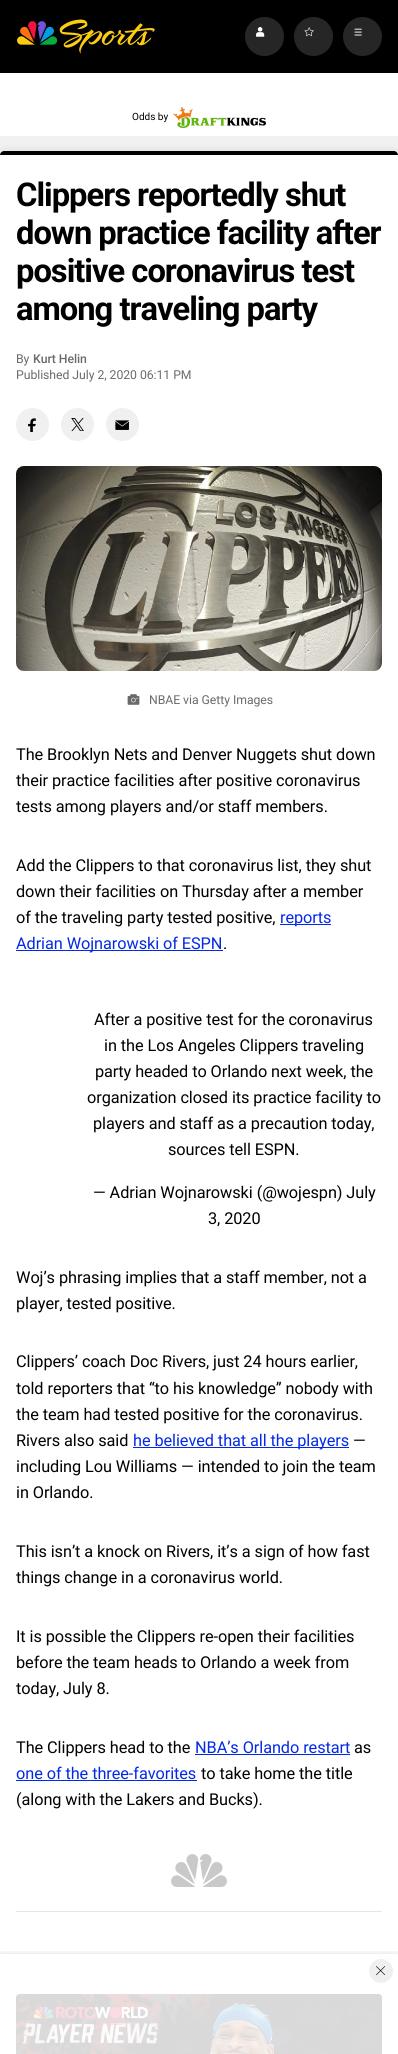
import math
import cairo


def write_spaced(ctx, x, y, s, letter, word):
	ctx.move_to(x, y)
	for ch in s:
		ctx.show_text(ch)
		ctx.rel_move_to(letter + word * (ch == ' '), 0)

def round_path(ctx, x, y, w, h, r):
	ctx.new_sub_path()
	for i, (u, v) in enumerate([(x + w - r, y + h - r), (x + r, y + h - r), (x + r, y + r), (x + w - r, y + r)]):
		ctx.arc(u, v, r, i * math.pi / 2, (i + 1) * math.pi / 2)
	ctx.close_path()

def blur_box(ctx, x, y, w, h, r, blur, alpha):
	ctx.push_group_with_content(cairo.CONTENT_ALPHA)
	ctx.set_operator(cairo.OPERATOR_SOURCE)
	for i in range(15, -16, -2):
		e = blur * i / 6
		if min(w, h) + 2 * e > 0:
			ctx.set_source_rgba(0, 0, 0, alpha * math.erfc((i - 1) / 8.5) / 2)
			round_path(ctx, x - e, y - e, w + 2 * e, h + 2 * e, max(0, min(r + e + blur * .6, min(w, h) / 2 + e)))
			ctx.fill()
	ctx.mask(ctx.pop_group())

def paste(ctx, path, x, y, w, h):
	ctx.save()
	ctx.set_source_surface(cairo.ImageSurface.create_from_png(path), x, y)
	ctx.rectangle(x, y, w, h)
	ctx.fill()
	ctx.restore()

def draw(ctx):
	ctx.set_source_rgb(0.945, 0.945, 0.945)
	ctx.paint()
	ctx.set_source_rgb(0, 0, 0)
	ctx.rectangle(0, 0, 398, 73)
	ctx.fill()
	paste(ctx, 'media/1.png', 17, 19, 138, 35)
	ctx.set_source_rgb(0.149, 0.149, 0.149)
	ctx.arc(264.5, 36.5, 19.5, 0, 2 * math.pi)
	ctx.fill()
	paste(ctx, 'media/2.png', 256, 27, 9, 10)
	ctx.arc(313.5, 36.5, 19.5, 0, 2 * math.pi)
	ctx.fill()
	paste(ctx, 'media/3.png', 304, 27, 10, 10)
	ctx.arc(362.5, 36.5, 19.5, 0, 2 * math.pi)
	ctx.fill()
	paste(ctx, 'media/4.png', 354, 28, 8, 8)
	ctx.set_source_rgb(1, 1, 1)
	ctx.rectangle(0, 73, 398, 63)
	ctx.fill()
	ctx.select_font_face('Roboto')
	ctx.set_font_size(10)
	ctx.set_source_rgb(0, 0, 0)
	ctx.move_to(132, 120)
	ctx.show_text('Odds by')
	paste(ctx, 'media/5.png', 173, 107, 93, 21)
	ctx.set_source_rgb(0, 0, 0)
	blur_box(ctx, 0, 153, 398, 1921, 5, 5, 0.15)
	ctx.set_source_rgb(1, 1, 1)
	round_path(ctx, 0, 151, 398, 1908, 5)
	ctx.fill()
	ctx.set_source_rgb(0, 0, 0)
	ctx.new_path()
	ctx.move_to(4, 151)
	ctx.line_to(394, 151)
	ctx.curve_to(396, 151, 398, 153, 398, 155)
	ctx.line_to(0, 155)
	ctx.curve_to(0, 153, 2, 151, 4, 151)
	ctx.close_path()
	ctx.fill()
	ctx.select_font_face('Roboto', cairo.FONT_SLANT_NORMAL, cairo.FONT_WEIGHT_BOLD)
	ctx.set_font_size(32.7)
	for x, y, s in [
		(16, 206, 'Clippers reportedly shut'),
		(16, 244, 'down practice facility after'),
		(16, 282, 'positive coronavirus test'),
		(16, 320, 'among traveling party'),
	]:
		write_spaced(ctx, x, y, s, -1, 0)
	ctx.select_font_face('Roboto')
	ctx.set_font_size(12.25)
	ctx.set_source_rgb(0.416, 0.416, 0.416)
	write_spaced(ctx, 16, 363, 'By', -0.05, 0)
	ctx.select_font_face('Roboto Medium')
	write_spaced(ctx, 33, 363, 'Kurt Helin', -0.05, 0)
	ctx.select_font_face('Roboto')
	write_spaced(ctx, 16, 379, 'Published July 2, 2020 06:11 PM', -0.05, 0)
	ctx.set_source_rgb(0.941, 0.941, 0.941)
	ctx.new_path()
	ctx.arc(32.5, 424.5, 16.5, 0, 2 * math.pi)
	ctx.fill()
	paste(ctx, 'media/6.png', 28, 418, 8, 14)
	ctx.arc(77.5, 424.5, 16.5, 0, 2 * math.pi)
	ctx.fill()
	paste(ctx, 'media/7.png', 71, 418, 13, 13)
	ctx.arc(122.5, 424.5, 16.5, 0, 2 * math.pi)
	ctx.fill()
	paste(ctx, 'media/8.png', 115, 420, 14, 10)
	paste(ctx, 'media/9.png', 16, 466, 366, 205)
	paste(ctx, 'media/10.png', 127, 694, 13, 11)
	ctx.set_source_rgb(0.416, 0.416, 0.416)
	write_spaced(ctx, 149, 704, 'NBAE via Getty Images', -0.05, 0)
	ctx.set_font_size(16.3)
	ctx.set_source_rgb(0, 0, 0)
	for x, y, s in [
		(16, 760, 'The Brooklyn Nets and Denver Nuggets shut down'),
		(16, 786, 'their practice facilities after positive coronavirus'),
		(16, 812, 'tests among players and/or staff members.'),
		(16, 871, 'Add the Clippers to that coronavirus list, they shut'),
		(16, 897, 'down their facilities on Thursday after a member'),
		(16, 923, 'of the traveling party tested positive,'),
	]:
		write_spaced(ctx, x, y, s, -0.08, 0)
	ctx.set_source_rgb(0.012, 0.161, 0.906)
	ctx.rectangle(280, 924, 51, 1)
	ctx.fill()
	write_spaced(ctx, 280, 923, 'reports', -0.08, 0)
	ctx.rectangle(16, 950, 207, 1)
	ctx.fill()
	write_spaced(ctx, 16, 949, 'Adrian Wojnarowski of ESPN', -0.08, 0)
	ctx.set_source_rgb(0, 0, 0)
	for x, y, s in [
		(223, 949, '.'),
		(94, 1025, 'After a positive test for the coronavirus'),
		(104, 1051, 'in the Los Angeles Clippers traveling'),
		(95, 1077, 'party headed to Orlando next week, the'),
		(87, 1103, 'organization closed its practice facility to'),
		(93, 1129, 'players and staff as a precaution today,'),
		(168, 1155, 'sources tell ESPN.'),
		(93, 1198, '— Adrian Wojnarowski (@wojespn) July'),
		(208, 1224, '3, 2020'),
		(16, 1283, 'Woj’s phrasing implies that a staff member, not a'),
		(16, 1309, 'player, tested positive.'),
		(16, 1367, 'Clippers’ coach Doc Rivers, just 24 hours earlier,'),
		(16, 1394, 'told reporters that “to his knowledge” nobody with'),
		(16, 1420, 'the team had tested positive for the coronavirus.'),
		(16, 1446, 'Rivers also said'),
	]:
		write_spaced(ctx, x, y, s, -0.08, 0)
	ctx.set_source_rgb(0.012, 0.161, 0.906)
	ctx.rectangle(133, 1447, 216, 1)
	ctx.fill()
	write_spaced(ctx, 133, 1446, 'he believed that all the players', -0.08, 0)
	ctx.set_source_rgb(0, 0, 0)
	for x, y, s in [
		(353, 1446, '—'),
		(16, 1472, 'including Lou Williams — intended to join the team'),
		(16, 1498, 'in Orlando.'),
		(16, 1557, 'This isn’t a knock on Rivers, it’s a sign of how fast'),
		(16, 1583, 'things change in a coronavirus world.'),
		(16, 1642, 'It is possible the Clippers re-open their facilities'),
		(16, 1668, 'before the team heads to Orlando a week from'),
		(16, 1694, 'today, July 8.'),
		(16, 1753, 'The Clippers head to the'),
	]:
		write_spaced(ctx, x, y, s, -0.08, 0)
	ctx.set_source_rgb(0.012, 0.161, 0.906)
	write_spaced(ctx, 195, 1753, 'NBA’s Orlando restart', -0.08, 0)
	ctx.rectangle(195, 1754, 155, 1)
	ctx.fill()
	ctx.set_source_rgb(0, 0, 0)
	write_spaced(ctx, 354, 1753, 'as', -0.08, 0)
	ctx.set_source_rgb(0.012, 0.161, 0.906)
	write_spaced(ctx, 16, 1779, 'one of the three-favorites', -0.08, 0)
	ctx.rectangle(16, 1780, 181, 1)
	ctx.fill()
	ctx.set_source_rgb(0, 0, 0)
	write_spaced(ctx, 201, 1779, 'to take home the title', -0.08, 0)
	write_spaced(ctx, 16, 1805, '(along with the Lakers and Bucks).', -0.08, 0)
	ctx.set_source_rgb(0.902, 0.902, 0.902)
	ctx.rectangle(16, 1911, 366, 1)
	ctx.fill()
	paste(ctx, 'media/11.png', 171, 1854, 56, 33)
	paste(ctx, 'media/12.png', 16, 1994, 366, 60)
	ctx.save()
	ctx.rectangle(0, 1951, 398, 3)
	ctx.clip()
	ctx.set_source_rgb(0, 0, 0)
	blur_box(ctx, 0, 1952, 398, 100, 0, 2, 0.08)
	ctx.restore()
	ctx.set_source_rgb(0.937, 0.937, 0.937)
	ctx.arc(381, 1971, 12, 0, 2 * math.pi)
	ctx.fill()
	paste(ctx, 'media/13.png', 376, 1966, 9, 9)


surface = cairo.ImageSurface(cairo.FORMAT_RGB24, 398, 2054)
ctx = cairo.Context(surface)
options = cairo.FontOptions()
options.set_hint_metrics(cairo.HINT_METRICS_OFF)
options.set_hint_style(cairo.HINT_STYLE_NONE)
ctx.set_font_options(options)
ctx.set_miter_limit(4)
draw(ctx)
surface.write_to_png('image.png')
